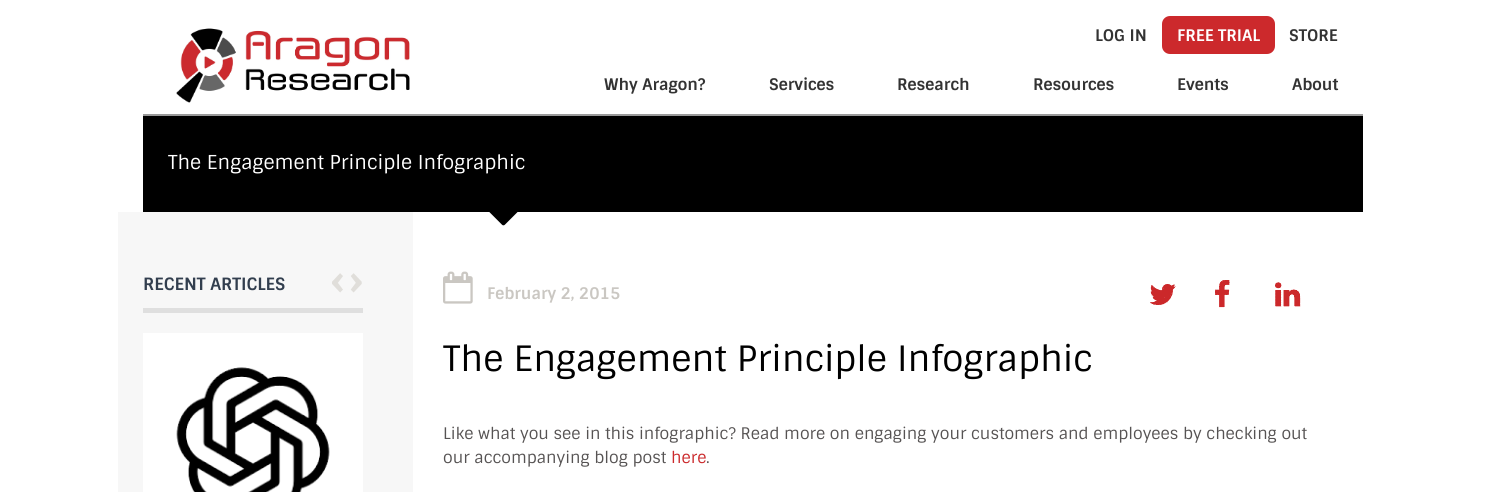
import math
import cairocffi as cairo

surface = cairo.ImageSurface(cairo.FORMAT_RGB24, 1506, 492)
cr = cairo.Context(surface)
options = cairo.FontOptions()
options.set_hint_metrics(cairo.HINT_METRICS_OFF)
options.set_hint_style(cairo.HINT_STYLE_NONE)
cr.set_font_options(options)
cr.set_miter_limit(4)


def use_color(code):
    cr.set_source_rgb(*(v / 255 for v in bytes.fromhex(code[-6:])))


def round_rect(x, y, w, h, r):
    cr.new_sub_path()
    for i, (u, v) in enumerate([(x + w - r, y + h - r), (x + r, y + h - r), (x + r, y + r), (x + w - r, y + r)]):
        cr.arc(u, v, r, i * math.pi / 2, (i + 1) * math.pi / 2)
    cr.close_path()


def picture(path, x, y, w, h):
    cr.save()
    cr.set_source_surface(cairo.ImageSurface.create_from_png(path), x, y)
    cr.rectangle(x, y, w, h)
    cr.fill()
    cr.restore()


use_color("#ffffff")
cr.paint()
use_color("#999999")
cr.rectangle(143, 114, 1220, 2)
cr.fill()
picture("img1.png", 176, 28, 234, 75)
cr.select_font_face("Sintony", cairo.FONT_SLANT_NORMAL, cairo.FONT_WEIGHT_BOLD)
cr.set_font_size(16)
use_color("#333333")
cr.move_to(1095, 41)
cr.show_text("LOG IN")
use_color("#cc292c")
round_rect(1162, 16, 113, 38, 8)
cr.fill()
use_color("#ffffff")
cr.move_to(1177, 41)
cr.show_text("FREE TRIAL")
use_color("#333333")
cr.move_to(1289, 41)
cr.show_text("STORE")
cr.move_to(604, 90)
cr.show_text("Why Aragon?")
cr.move_to(769, 90)
cr.show_text("Services")
cr.move_to(897, 90)
cr.show_text("Research")
cr.move_to(1033, 90)
cr.show_text("Resources")
cr.move_to(1177, 90)
cr.show_text("Events")
cr.move_to(1292, 90)
cr.show_text("About")
use_color("#000000")
cr.rectangle(143, 116, 1220, 96)
cr.fill()
cr.select_font_face("Sintony")
cr.set_font_size(19.25)
use_color("#ffffff")
cr.move_to(168, 169)
cr.show_text("The Engagement Principle Infographic")
picture("img2.png", 489, 212, 29, 14)
use_color("#f7f7f7")
cr.rectangle(118, 212, 295, 280)
cr.fill()
use_color("#dfdfdf")
cr.rectangle(143, 308, 220, 5)
cr.fill()
cr.select_font_face("Sintony", cairo.FONT_SLANT_NORMAL, cairo.FONT_WEIGHT_BOLD)
cr.set_font_size(17)
use_color("#323e4e")
cr.move_to(143, 290)
cr.show_text("RECENT ARTICLES")
cr.set_font_size(45)
use_color("#e0deda")
cr.move_to(331, 297)
cr.show_text("‹")
cr.move_to(349, 297)
cr.show_text("›")
picture("img3.png", 143, 333, 220, 159)
picture("img4.png", 443, 271, 30, 33)
cr.set_font_size(16)
use_color("#cac7c2")
cr.move_to(487, 299)
cr.show_text("February 2, 2015")
picture("img5.png", 1150, 284, 26, 21)
picture("img6.png", 1215, 280, 15, 28)
picture("img7.png", 1275, 282, 26, 25)
cr.select_font_face("Sintony")
cr.set_font_size(35)
use_color("#000000")
cr.move_to(443, 371)
cr.show_text("The Engagement Principle Infographic")
cr.set_font_size(16)
use_color("#565353")
cr.move_to(443, 439)
cr.show_text("Like what you see in this infographic? Read more on engaging your customers and employees by checking out")
cr.move_to(443, 463)
cr.show_text("our accompanying blog post")
use_color("#cb292b")
cr.move_to(671, 463)
cr.show_text("here")
use_color("#565353")
cr.move_to(706, 463)
cr.show_text(".")
surface.write_to_png("result.png")
